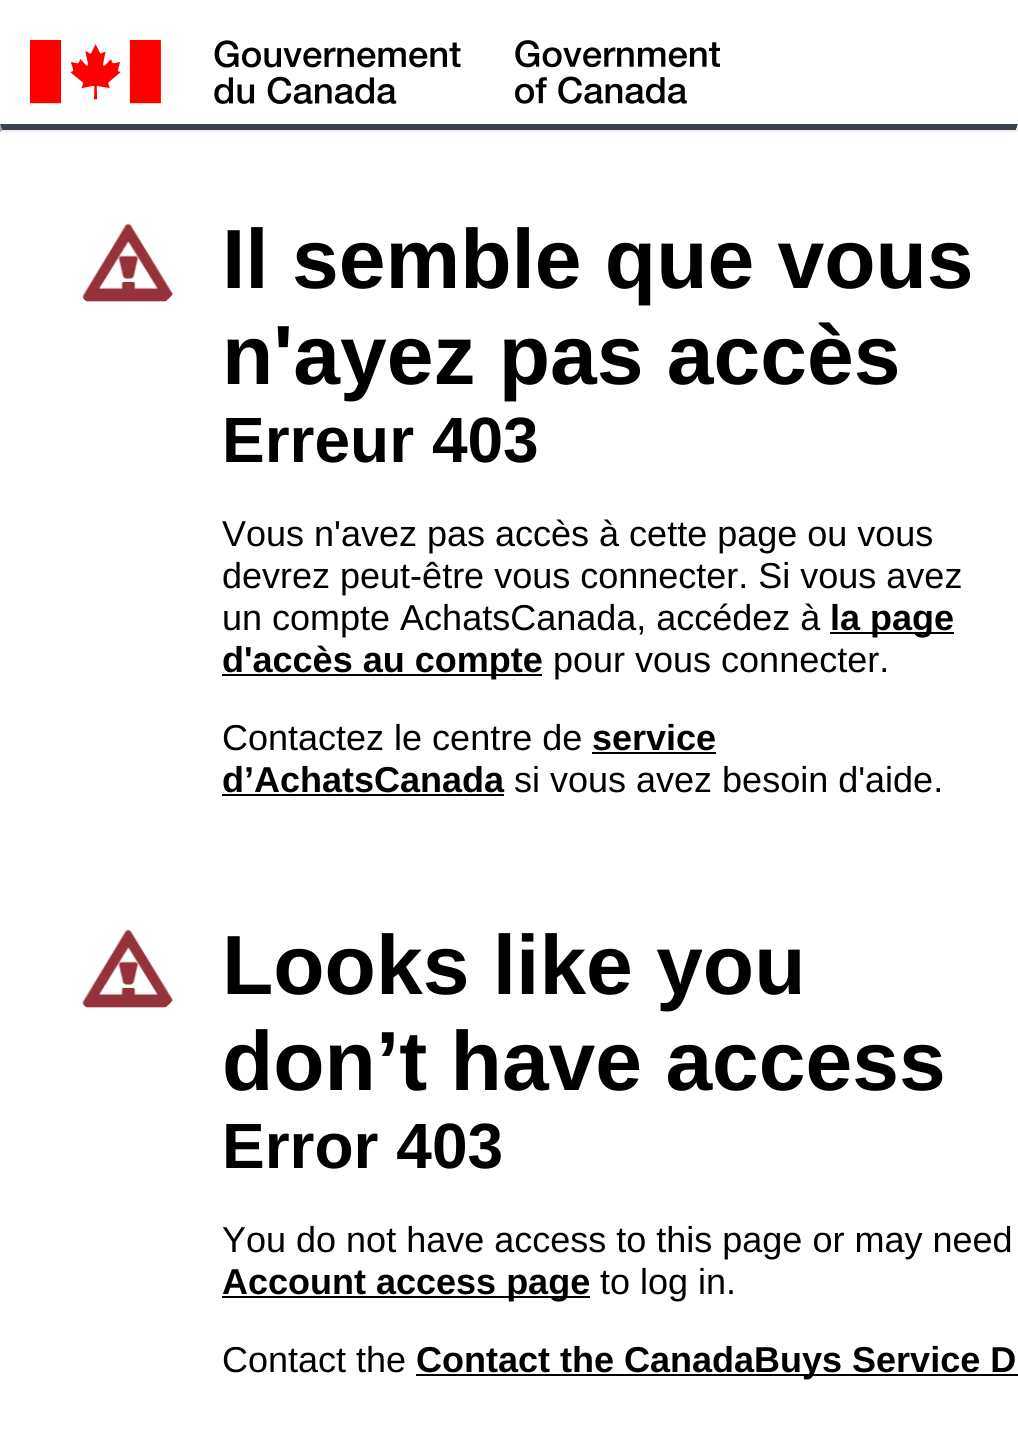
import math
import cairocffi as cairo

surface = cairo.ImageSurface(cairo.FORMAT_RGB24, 1018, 1437)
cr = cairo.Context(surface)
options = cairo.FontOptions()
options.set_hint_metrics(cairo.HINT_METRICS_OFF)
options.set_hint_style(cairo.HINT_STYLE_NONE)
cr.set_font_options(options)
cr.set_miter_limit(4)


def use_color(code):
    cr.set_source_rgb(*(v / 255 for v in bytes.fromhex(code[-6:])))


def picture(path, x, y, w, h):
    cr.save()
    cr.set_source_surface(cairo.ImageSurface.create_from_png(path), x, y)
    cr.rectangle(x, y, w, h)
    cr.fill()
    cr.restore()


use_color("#ffffff")
cr.paint()
picture("img1.png", 30, 40, 691, 64)
use_color("#38414d")
cr.new_path()
cr.move_to(0, 124)
cr.line_to(1018, 124)
cr.line_to(1016, 130)
cr.line_to(2, 130)
cr.close_path()
cr.fill()
use_color("#eeeeee")
cr.new_path()
cr.move_to(1018, 124)
cr.line_to(1018, 132)
cr.line_to(1016, 130)
cr.close_path()
cr.fill()
cr.rectangle(0, 130, 1018, 2)
cr.fill()
use_color("#9f9f9f")
cr.new_path()
cr.move_to(0, 132)
cr.line_to(0, 124)
cr.line_to(2, 130)
cr.close_path()
cr.fill()
picture("img2.png", 82, 223, 92, 79)
cr.select_font_face("Liberation Sans", cairo.FONT_SLANT_NORMAL, cairo.FONT_WEIGHT_BOLD)
cr.set_font_size(84)
use_color("#000000")
cr.move_to(222, 288)
cr.show_text("Il semble que vous")
cr.move_to(222, 384)
cr.show_text("n'ayez pas accès")
cr.set_font_size(64)
cr.move_to(222, 462)
cr.show_text("Erreur 403")
cr.select_font_face("Liberation Sans")
cr.set_font_size(36)
cr.move_to(222, 546)
cr.show_text("Vous n'avez pas accès à cette page ou vous")
cr.move_to(222, 588)
cr.show_text("devrez peut-être vous connecter. Si vous avez")
cr.move_to(222, 630)
cr.show_text("un compte AchatsCanada, accédez à")
cr.rectangle(830, 632, 124, 2)
cr.fill()
cr.select_font_face("Liberation Sans", cairo.FONT_SLANT_NORMAL, cairo.FONT_WEIGHT_BOLD)
cr.move_to(830, 630)
cr.show_text("la page")
cr.rectangle(222, 674, 320, 2)
cr.fill()
cr.move_to(222, 672)
cr.show_text("d'accès au compte")
cr.select_font_face("Liberation Sans")
cr.move_to(553, 672)
cr.show_text("pour vous connecter.")
cr.move_to(222, 750)
cr.show_text("Contactez le centre de")
cr.select_font_face("Liberation Sans", cairo.FONT_SLANT_NORMAL, cairo.FONT_WEIGHT_BOLD)
cr.move_to(592, 750)
cr.show_text("service")
cr.rectangle(592, 752, 124, 2)
cr.fill()
cr.move_to(222, 792)
cr.show_text("d’AchatsCanada")
cr.rectangle(222, 794, 282, 2)
cr.fill()
cr.select_font_face("Liberation Sans")
cr.move_to(514, 792)
cr.show_text("si vous avez besoin d'aide.")
picture("img2.png", 82, 929, 92, 79)
cr.select_font_face("Liberation Sans", cairo.FONT_SLANT_NORMAL, cairo.FONT_WEIGHT_BOLD)
cr.set_font_size(84)
cr.move_to(222, 994)
cr.show_text("Looks like you")
cr.move_to(222, 1090)
cr.show_text("don’t have access")
cr.set_font_size(64)
cr.move_to(222, 1168)
cr.show_text("Error 403")
cr.select_font_face("Liberation Sans")
cr.set_font_size(36)
cr.move_to(222, 1252)
cr.show_text("You do not have access to this page or may need")
cr.rectangle(222, 1296, 368, 2)
cr.fill()
cr.select_font_face("Liberation Sans", cairo.FONT_SLANT_NORMAL, cairo.FONT_WEIGHT_BOLD)
cr.move_to(222, 1294)
cr.show_text("Account access page")
cr.select_font_face("Liberation Sans")
cr.move_to(600, 1294)
cr.show_text("to log in.")
cr.move_to(222, 1372)
cr.show_text("Contact the")
cr.rectangle(416, 1374, 602, 2)
cr.fill()
cr.select_font_face("Liberation Sans", cairo.FONT_SLANT_NORMAL, cairo.FONT_WEIGHT_BOLD)
cr.move_to(416, 1372)
cr.show_text("Contact the CanadaBuys Service D")
surface.write_to_png("result.png")
